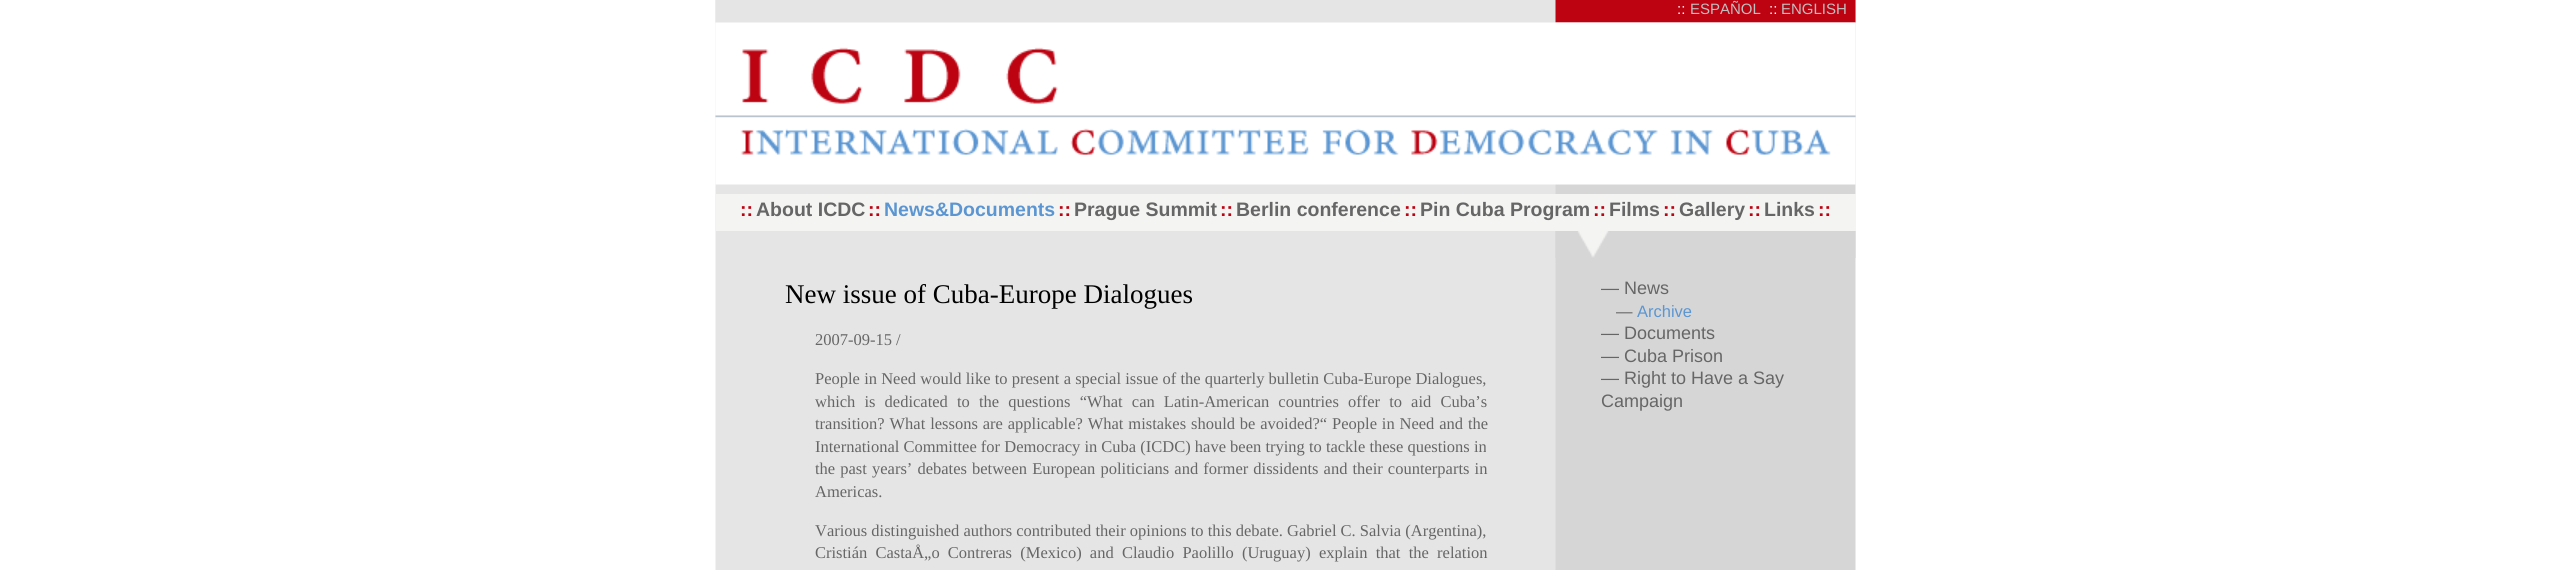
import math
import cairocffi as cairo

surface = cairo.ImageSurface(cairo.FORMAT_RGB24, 2570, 570)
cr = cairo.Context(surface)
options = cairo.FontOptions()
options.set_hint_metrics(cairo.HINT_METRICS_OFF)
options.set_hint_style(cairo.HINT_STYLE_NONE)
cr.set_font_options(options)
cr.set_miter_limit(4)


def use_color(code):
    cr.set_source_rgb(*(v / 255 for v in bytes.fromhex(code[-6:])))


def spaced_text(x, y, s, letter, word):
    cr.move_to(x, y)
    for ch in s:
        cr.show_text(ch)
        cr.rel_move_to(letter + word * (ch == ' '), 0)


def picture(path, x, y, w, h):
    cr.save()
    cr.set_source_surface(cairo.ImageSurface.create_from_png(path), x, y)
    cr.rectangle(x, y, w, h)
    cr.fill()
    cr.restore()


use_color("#ffffff")
cr.paint()
picture("img1.png", 715, 0, 1141, 570)
picture("img2.png", 715, 0, 1141, 23)
cr.select_font_face("Liberation Sans")
cr.set_font_size(15)
use_color("#ffffff")
cr.move_to(1677, 14)
cr.show_text("::")
use_color("#c0c0c0")
cr.move_to(1690, 14)
cr.show_text("ESPAÑOL")
use_color("#ffffff")
cr.move_to(1769, 14)
cr.show_text("::")
use_color("#c0c0c0")
cr.move_to(1781, 14)
cr.show_text("ENGLISH")
picture("img3.png", 715, 22, 1141, 163)
use_color("#f4f4f3")
cr.rectangle(716, 194, 1140, 37)
cr.fill()
cr.select_font_face("Liberation Sans", cairo.FONT_SLANT_NORMAL, cairo.FONT_WEIGHT_BOLD)
cr.set_font_size(19.5)
use_color("#bd0212")
cr.move_to(740, 216)
cr.show_text("::")
use_color("#666666")
cr.move_to(756, 216)
cr.show_text("About ICDC")
use_color("#bd0212")
cr.move_to(868, 216)
cr.show_text("::")
use_color("#5b96d2")
cr.move_to(884, 216)
cr.show_text("News&Documents")
use_color("#bd0212")
cr.move_to(1058, 216)
cr.show_text("::")
use_color("#666666")
cr.move_to(1074, 216)
cr.show_text("Prague Summit")
use_color("#bd0212")
cr.move_to(1220, 216)
cr.show_text("::")
use_color("#666666")
cr.move_to(1236, 216)
cr.show_text("Berlin conference")
use_color("#bd0212")
cr.move_to(1404, 216)
cr.show_text("::")
use_color("#666666")
cr.move_to(1420, 216)
cr.show_text("Pin Cuba Program")
use_color("#bd0212")
cr.move_to(1593, 216)
cr.show_text("::")
use_color("#666666")
cr.move_to(1609, 216)
cr.show_text("Films")
use_color("#bd0212")
cr.move_to(1663, 216)
cr.show_text("::")
use_color("#666666")
cr.move_to(1679, 216)
cr.show_text("Gallery")
use_color("#bd0212")
cr.move_to(1748, 216)
cr.show_text("::")
use_color("#666666")
cr.move_to(1764, 216)
cr.show_text("Links")
use_color("#bd0212")
cr.move_to(1818, 216)
cr.show_text("::")
cr.select_font_face("Liberation Serif")
cr.set_font_size(27)
use_color("#000000")
cr.move_to(785, 303)
cr.show_text("New issue of Cuba-Europe Dialogues")
cr.set_font_size(16.5)
use_color("#666666")
cr.move_to(815, 345)
cr.show_text("2007-09-15 /")
spaced_text(815, 384, "People in Need would like to present a special issue of the quarterly bulletin Cuba-Europe Dialogues,", 0, 0.1)
spaced_text(815, 407, "which is dedicated to the questions “What can Latin-American countries offer to aid Cuba’s", 0, 5)
spaced_text(815, 429, "transition? What lessons are applicable? What mistakes should be avoided?“ People in Need and the", 0, 0.75)
cr.move_to(815, 452)
cr.show_text("International Committee for Democracy in Cuba (ICDC) have been trying to tackle these questions in")
spaced_text(815, 474, "the past years’ debates between European politicians and former dissidents and their counterparts in", 0, 1)
cr.move_to(815, 497)
cr.show_text("Americas.")
cr.move_to(815, 536)
cr.show_text("Various distinguished authors contributed their opinions to this debate. Gabriel C. Salvia (Argentina),")
spaced_text(815, 558, "Cristián CastaÅ„o Contreras (Mexico) and Claudio Paolillo (Uruguay) explain that the relation", 0, 4.1)
picture("img4.png", 1555, 231, 301, 27)
cr.select_font_face("Liberation Sans")
cr.set_font_size(18)
cr.move_to(1601, 294)
cr.show_text("— News")
cr.set_font_size(16.5)
cr.move_to(1616, 317)
cr.show_text("—")
use_color("#5b96d2")
cr.move_to(1637, 317)
cr.show_text("Archive")
cr.set_font_size(18)
use_color("#666666")
cr.move_to(1601, 339)
cr.show_text("— Documents")
cr.move_to(1601, 362)
cr.show_text("— Cuba Prison")
cr.move_to(1601, 384)
cr.show_text("— Right to Have a Say")
cr.move_to(1601, 407)
cr.show_text("Campaign")
surface.write_to_png("result.png")
